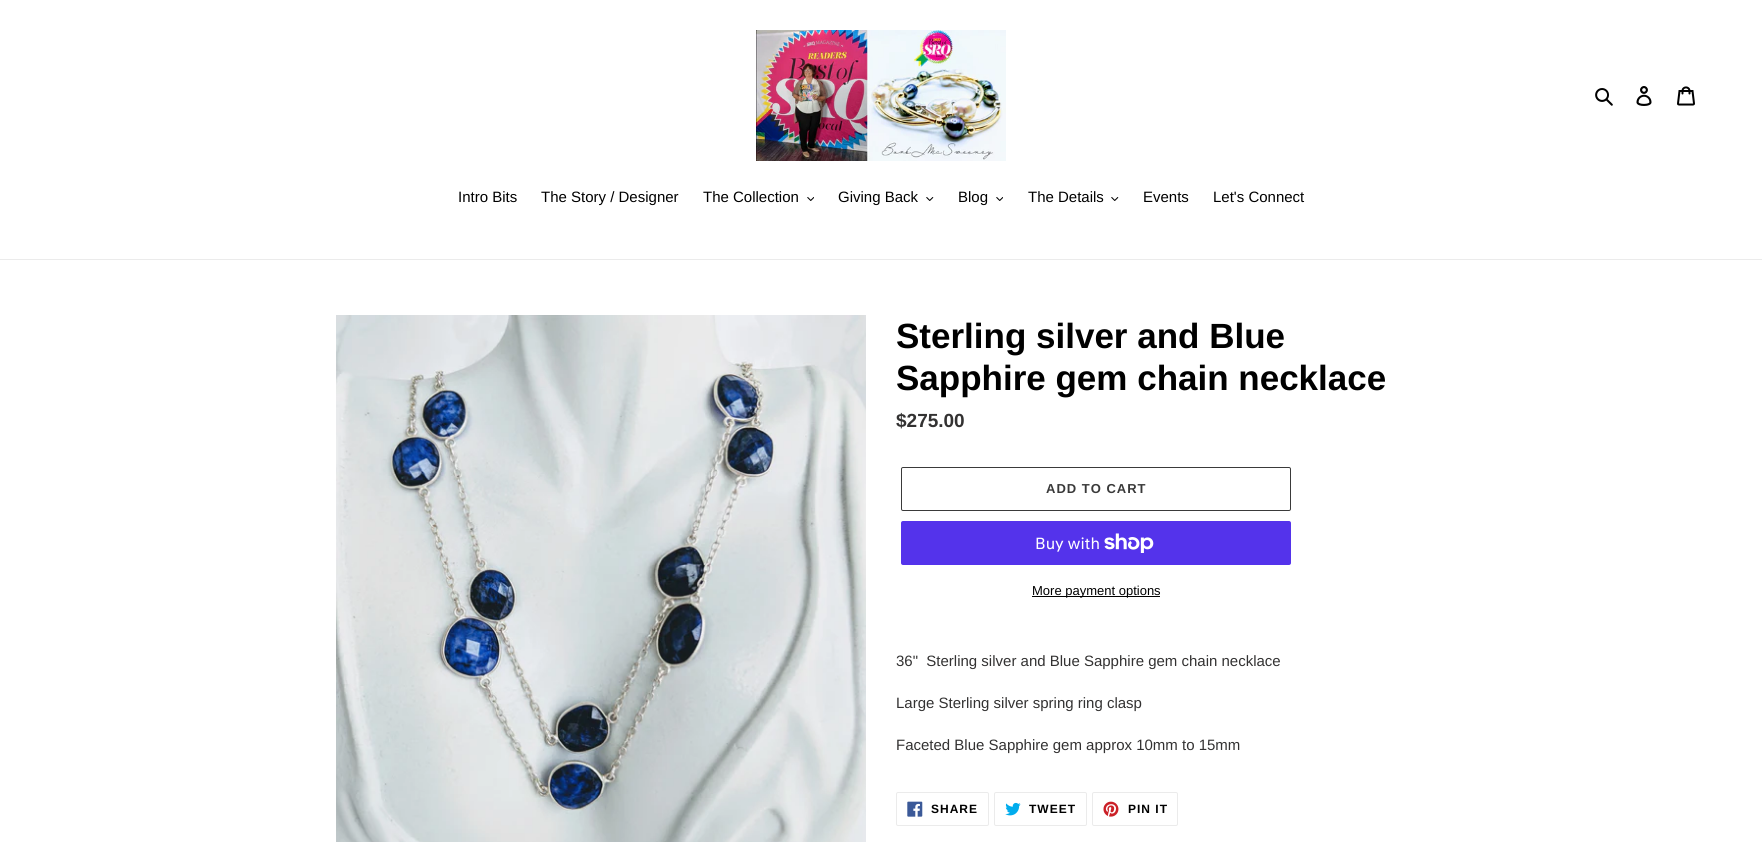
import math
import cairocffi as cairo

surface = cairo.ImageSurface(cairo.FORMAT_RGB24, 1762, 842)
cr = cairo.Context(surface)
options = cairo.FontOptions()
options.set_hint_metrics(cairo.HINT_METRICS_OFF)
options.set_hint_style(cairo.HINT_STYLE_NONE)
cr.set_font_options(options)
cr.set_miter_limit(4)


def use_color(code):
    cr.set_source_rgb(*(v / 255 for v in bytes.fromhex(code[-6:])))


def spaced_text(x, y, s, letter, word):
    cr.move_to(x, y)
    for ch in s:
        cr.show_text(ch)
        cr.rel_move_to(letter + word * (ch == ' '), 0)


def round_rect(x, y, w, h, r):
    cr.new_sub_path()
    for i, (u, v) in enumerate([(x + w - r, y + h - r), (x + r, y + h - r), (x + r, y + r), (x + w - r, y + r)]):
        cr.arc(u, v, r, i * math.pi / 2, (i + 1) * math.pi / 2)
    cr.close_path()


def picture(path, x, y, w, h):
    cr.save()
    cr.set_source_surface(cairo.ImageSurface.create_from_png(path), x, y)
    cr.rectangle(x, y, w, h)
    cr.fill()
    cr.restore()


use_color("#ffffff")
cr.paint()
picture("img1.png", 756, 30, 250, 131)
picture("img2.png", 1595, 88, 18, 18)
picture("img3.png", 1636, 86, 16, 20)
picture("img4.png", 1677, 86, 18, 20)
use_color("#ebebeb")
cr.rectangle(0, 259, 1762, 1)
cr.fill()
cr.select_font_face("Liberation Sans")
cr.set_font_size(15)
use_color("#000000")
cr.move_to(458, 202)
cr.show_text("Intro Bits")
cr.move_to(541, 202)
cr.show_text("The Story / Designer")
cr.move_to(703, 202)
cr.show_text("The Collection")
picture("img5.png", 807, 197, 7, 4)
cr.move_to(838, 202)
cr.show_text("Giving Back")
picture("img6.png", 926, 197, 8, 4)
cr.move_to(958, 202)
cr.show_text("Blog")
picture("img5.png", 996, 197, 7, 4)
cr.move_to(1028, 202)
cr.show_text("The Details")
picture("img6.png", 1111, 197, 8, 4)
cr.move_to(1143, 202)
cr.show_text("Events")
cr.move_to(1213, 202)
cr.show_text("Let's Connect")
picture("img7.png", 336, 315, 530, 527)
cr.select_font_face("Liberation Sans", cairo.FONT_SLANT_NORMAL, cairo.FONT_WEIGHT_BOLD)
cr.set_font_size(35)
cr.move_to(896, 348)
cr.show_text("Sterling silver and Blue")
cr.move_to(896, 390)
cr.show_text("Sapphire gem chain necklace")
cr.set_font_size(19)
use_color("#333232")
cr.move_to(896, 427)
cr.show_text("$275.00")
round_rect(901.5, 467.5, 389, 43, 1.5)
use_color("#3a3a3a")
cr.set_line_width(1)
cr.stroke()
cr.set_font_size(13)
spaced_text(1046, 493, "ADD TO CART", 1, 0)
use_color("#5433eb")
round_rect(901, 521, 390, 44, 2)
cr.fill()
cr.select_font_face("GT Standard")
cr.set_font_size(16)
use_color("#ffffff")
cr.move_to(1035, 549)
cr.show_text("Buy with")
picture("img8.png", 1104, 533, 50, 20)
use_color("#000000")
cr.rectangle(1032, 596, 128, 1)
cr.fill()
cr.select_font_face("Liberation Sans")
cr.set_font_size(13)
cr.move_to(1032, 595)
cr.show_text("More payment options")
cr.set_font_size(15)
use_color("#333232")
cr.move_to(896, 666)
cr.show_text("36\"  Sterling silver and Blue Sapphire gem chain necklace")
cr.move_to(896, 708)
cr.show_text("Large Sterling silver spring ring clasp")
cr.move_to(896, 750)
cr.show_text("Faceted Blue Sapphire gem approx 10mm to 15mm")
round_rect(896.5, 792.5, 92, 33, 1.5)
use_color("#ebebeb")
cr.stroke()
picture("img9.png", 907, 801, 16, 16)
cr.select_font_face("Liberation Sans", cairo.FONT_SLANT_NORMAL, cairo.FONT_WEIGHT_BOLD)
cr.set_font_size(12)
use_color("#000000")
spaced_text(931, 813, "SHARE", 1, 0)
round_rect(994.5, 792.5, 92, 33, 1.5)
use_color("#ebebeb")
cr.stroke()
picture("img10.png", 1005, 802, 16, 14)
use_color("#000000")
spaced_text(1029, 813, "TWEET", 1, 0)
round_rect(1092.5, 792.5, 85, 33, 1.5)
use_color("#ebebeb")
cr.stroke()
picture("img11.png", 1103, 801, 16, 16)
use_color("#000000")
spaced_text(1128, 813, "PIN IT", 1, 0)
surface.write_to_png("result.png")
